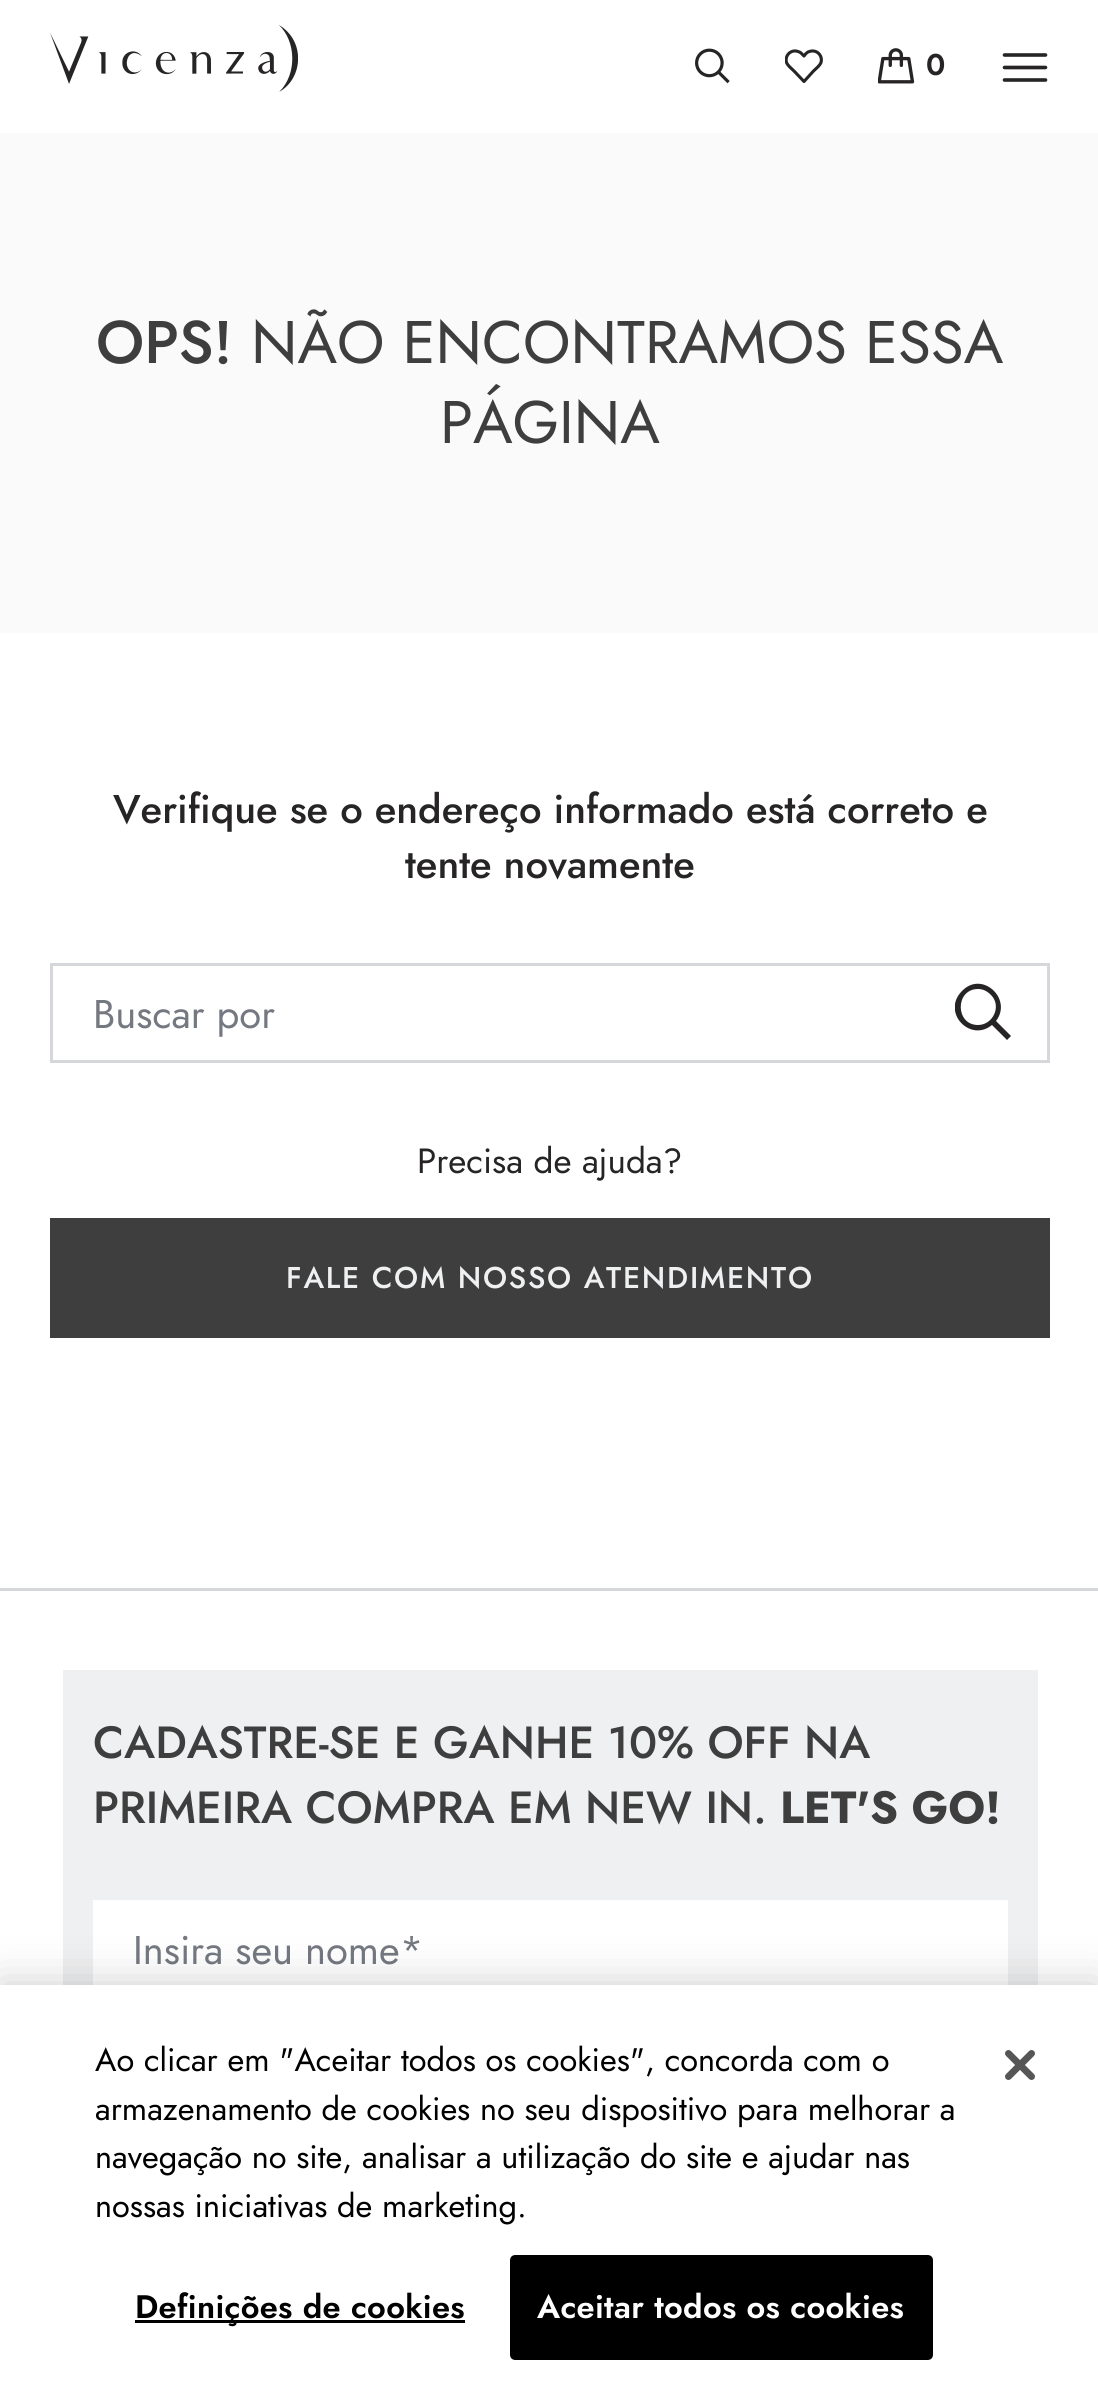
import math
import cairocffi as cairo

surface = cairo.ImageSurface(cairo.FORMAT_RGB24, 1098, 2399)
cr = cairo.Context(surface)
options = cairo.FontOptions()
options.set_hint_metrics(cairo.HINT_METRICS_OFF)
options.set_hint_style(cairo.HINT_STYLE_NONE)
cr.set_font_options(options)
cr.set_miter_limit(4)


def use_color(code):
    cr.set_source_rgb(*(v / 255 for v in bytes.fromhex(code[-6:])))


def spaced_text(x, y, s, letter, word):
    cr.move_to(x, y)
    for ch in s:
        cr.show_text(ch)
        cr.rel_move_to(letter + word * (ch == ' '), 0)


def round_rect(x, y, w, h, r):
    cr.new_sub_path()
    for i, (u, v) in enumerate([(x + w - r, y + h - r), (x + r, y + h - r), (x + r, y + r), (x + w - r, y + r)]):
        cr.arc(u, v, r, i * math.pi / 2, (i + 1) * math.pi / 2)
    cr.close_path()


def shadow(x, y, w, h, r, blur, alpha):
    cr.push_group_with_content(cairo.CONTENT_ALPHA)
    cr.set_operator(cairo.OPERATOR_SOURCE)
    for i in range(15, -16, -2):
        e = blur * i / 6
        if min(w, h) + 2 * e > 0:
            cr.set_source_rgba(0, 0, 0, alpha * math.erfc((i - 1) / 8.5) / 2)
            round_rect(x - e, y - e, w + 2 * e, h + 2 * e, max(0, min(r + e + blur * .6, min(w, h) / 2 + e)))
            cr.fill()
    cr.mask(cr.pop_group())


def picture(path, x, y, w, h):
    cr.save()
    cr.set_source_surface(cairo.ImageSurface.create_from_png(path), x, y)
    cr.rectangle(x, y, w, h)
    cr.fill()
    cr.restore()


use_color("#ffffff")
cr.paint()
picture("img1.png", 50, 25, 248, 67)
picture("img2.png", 695, 48, 35, 36)
cr.save()
cr.rectangle(785, 48, 38, 37)
cr.clip()
cr.new_path()
cr.move_to(804, 81.5)
cr.line_to(794, 71)
cr.curve_to(791.5, 68.5, 788, 66, 786.5, 62.5)
cr.curve_to(784.5, 55.5, 791, 49, 798, 51.5)
cr.curve_to(800.5, 52, 802, 54, 804, 56)
cr.curve_to(805.5, 54, 807, 52, 809.5, 51.5)
cr.curve_to(816.5, 49, 823, 55.5, 821, 62.5)
cr.curve_to(819.5, 66, 816, 68.5, 813.5, 71)
cr.close_path()
use_color("#262424")
cr.set_line_width(3.1)
cr.set_line_cap(cairo.LINE_CAP_ROUND)
cr.set_line_join(cairo.LINE_JOIN_ROUND)
cr.stroke()
cr.restore()
picture("img3.png", 878, 48, 37, 36)
cr.select_font_face("Jost SemiBold")
cr.set_font_size(30)
use_color("#262424")
cr.move_to(926, 75)
cr.show_text("0")
cr.new_path()
cr.move_to(1004.5, 80)
cr.line_to(1045.5, 80)
cr.move_to(1004.5, 67.5)
cr.line_to(1045.5, 67.5)
cr.move_to(1004.5, 55)
cr.line_to(1045.5, 55)
cr.set_line_width(3.6)
cr.set_line_cap(cairo.LINE_CAP_ROUND)
cr.set_line_join(cairo.LINE_JOIN_ROUND)
cr.stroke()
use_color("#fafafa")
cr.rectangle(0, 133, 1098, 500)
cr.fill()
cr.select_font_face("Jost Medium")
cr.set_font_size(60)
use_color("#3e3e3e")
cr.move_to(96, 363)
cr.show_text("OPS!")
cr.select_font_face("Jost")
cr.move_to(251, 363)
cr.show_text("NÃO ENCONTRAMOS ESSA")
cr.move_to(440, 443)
cr.show_text("PÁGINA")
use_color("#d6d7da")
cr.rectangle(0, 1588, 1098, 3)
cr.fill()
cr.select_font_face("Jost Medium")
cr.set_font_size(40)
use_color("#262424")
cr.move_to(113, 823)
cr.show_text("Verifique se o endereço informado está correto e")
cr.move_to(405, 878)
cr.show_text("tente novamente")
cr.rectangle(51.5, 964.5, 997, 97)
use_color("#d6d7da")
cr.set_line_width(3)
cr.set_line_cap(cairo.LINE_CAP_BUTT)
cr.set_line_join(cairo.LINE_JOIN_MITER)
cr.stroke()
cr.select_font_face("Jost")
use_color("#747880")
cr.move_to(93, 1028)
cr.show_text("Buscar por")
cr.save()
cr.rectangle(955, 983, 58, 60)
cr.clip()
use_color("#262424")
cr.new_path()
cr.move_to(996, 1021)
cr.curve_to(1013, 999, 982, 970, 962, 991)
cr.curve_to(941, 1012, 970, 1043, 992, 1025)
cr.line_to(1007, 1040)
cr.line_to(1011, 1036)
cr.close_path()
cr.move_to(978, 1025)
cr.curve_to(955, 1025, 955, 989, 978, 989)
cr.curve_to(983, 989, 987, 991, 991, 995)
cr.curve_to(1002, 1006, 993, 1025, 978, 1025)
cr.close_path()
cr.fill()
cr.restore()
cr.set_font_size(35)
use_color("#262424")
cr.move_to(417, 1173)
cr.show_text("Precisa de ajuda?")
use_color("#3e3e3e")
cr.rectangle(50, 1218, 1000, 120)
cr.fill()
cr.select_font_face("Jost Medium")
cr.set_font_size(30)
use_color("#eff0f1")
spaced_text(286, 1288, "FALE COM NOSSO ATENDIMENTO", 1.75, 0)
cr.rectangle(63, 1670, 975, 315)
cr.fill()
cr.set_font_size(45)
use_color("#3e3e3e")
cr.move_to(93, 1758)
cr.show_text("CADASTRE-SE E GANHE 10% OFF NA")
cr.move_to(93, 1823)
cr.show_text("PRIMEIRA COMPRA EM NEW IN.")
cr.select_font_face("Jost", cairo.FONT_SLANT_NORMAL, cairo.FONT_WEIGHT_BOLD)
cr.move_to(780, 1823)
cr.show_text("LET'S GO!")
use_color("#ffffff")
cr.rectangle(93, 1900, 915, 85)
cr.fill()
cr.select_font_face("Jost")
cr.set_font_size(40)
use_color("#747880")
cr.move_to(133, 1964)
cr.show_text("Insira seu nome*")
use_color("#000000")
shadow(0, 1985, 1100, 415, 0, 22.5, 0.2)
use_color("#ffffff")
cr.rectangle(0, 1985, 1098, 414)
cr.fill()
cr.set_font_size(32.5)
use_color("#000000")
cr.move_to(95, 2071)
cr.show_text("Ao clicar em \"Aceitar todos os cookies\", concorda com o")
cr.move_to(95, 2120)
cr.show_text("armazenamento de cookies no seu dispositivo para melhorar a")
cr.move_to(95, 2168)
cr.show_text("navegação no site, analisar a utilização do site e ajudar nas")
cr.move_to(95, 2217)
cr.show_text("nossas iniciativas de marketing.")
cr.rectangle(135, 2320, 330, 3)
cr.fill()
cr.select_font_face("Jost SemiBold")
spaced_text(135, 2318, "Definições de cookies", 0.3, 0)
round_rect(511.5, 2256.5, 420, 102, 3.5)
cr.fill_preserve()
cr.stroke()
use_color("#ffffff")
spaced_text(537, 2318, "Aceitar todos os cookies", 0.3, 0)
picture("img4.png", 1005, 2050, 30, 30)
surface.write_to_png("result.png")
